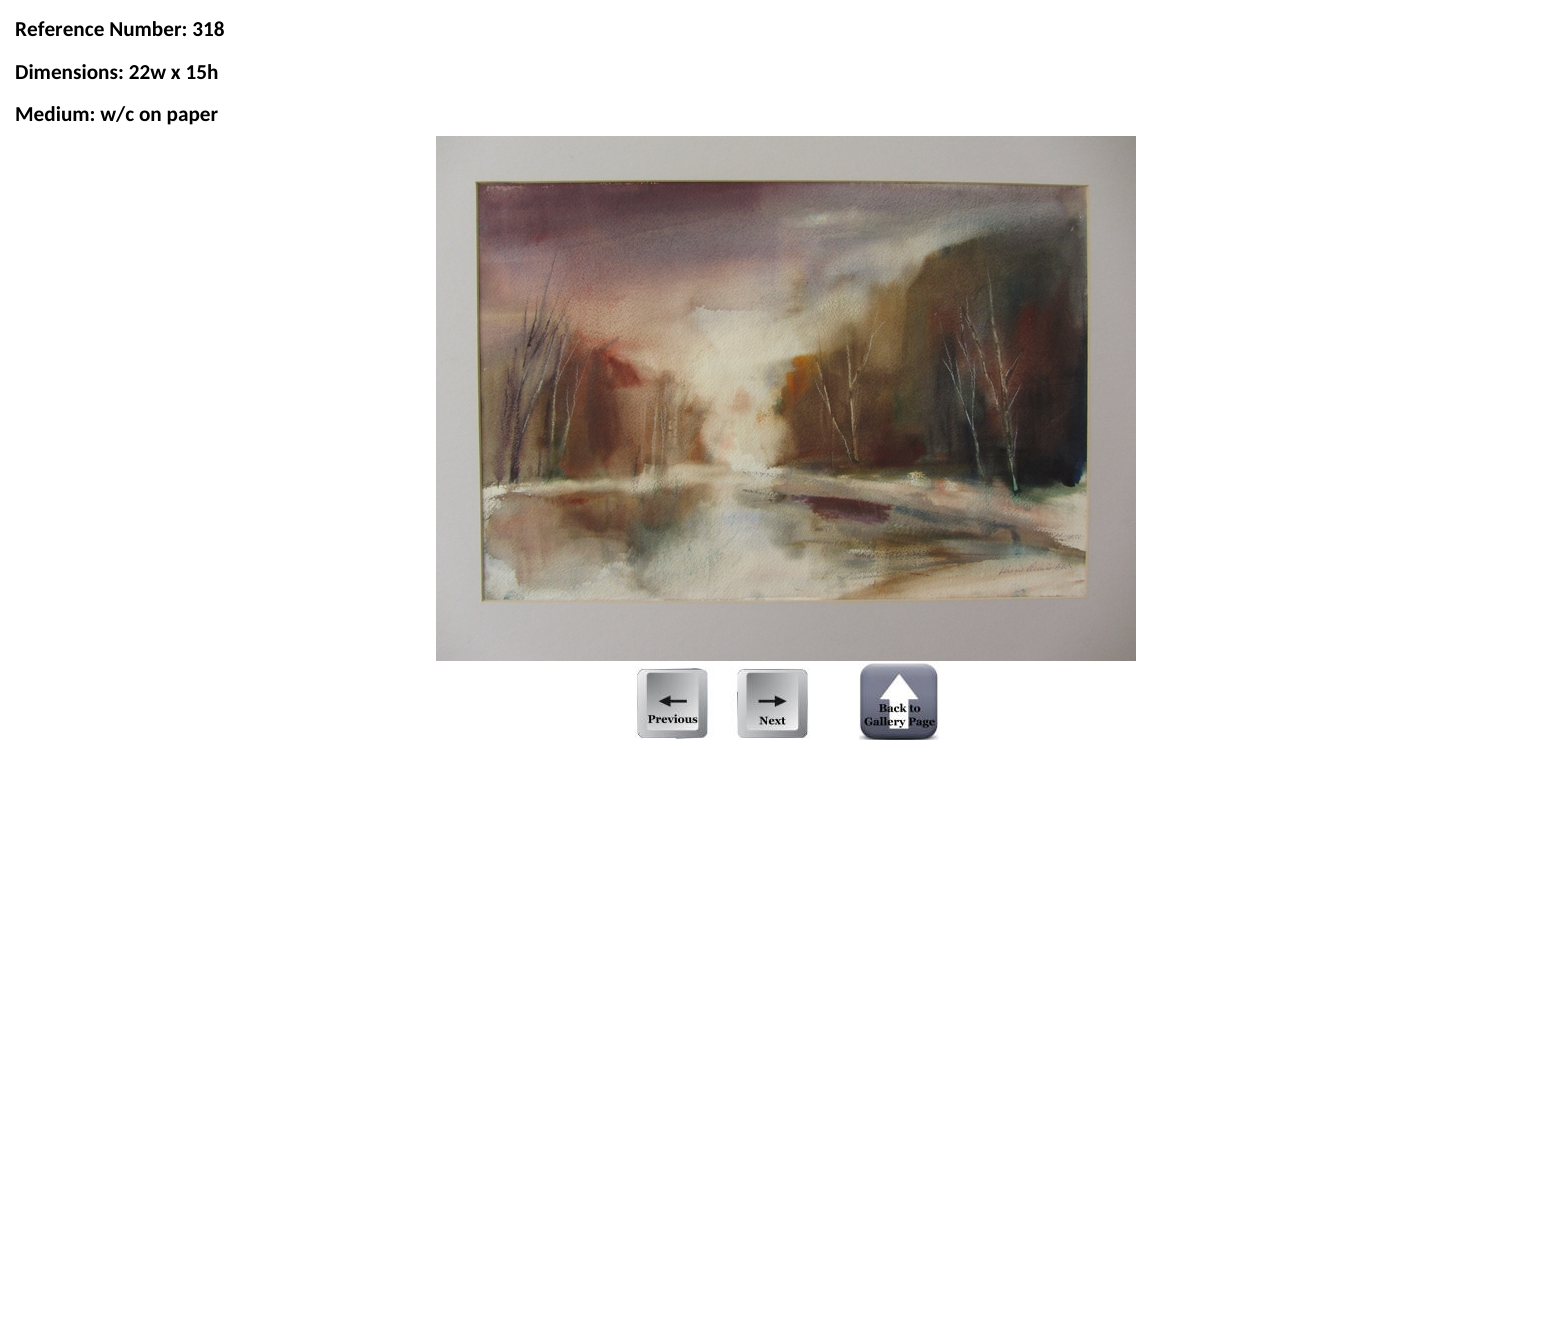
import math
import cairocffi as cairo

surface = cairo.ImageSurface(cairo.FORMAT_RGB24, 1566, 1326)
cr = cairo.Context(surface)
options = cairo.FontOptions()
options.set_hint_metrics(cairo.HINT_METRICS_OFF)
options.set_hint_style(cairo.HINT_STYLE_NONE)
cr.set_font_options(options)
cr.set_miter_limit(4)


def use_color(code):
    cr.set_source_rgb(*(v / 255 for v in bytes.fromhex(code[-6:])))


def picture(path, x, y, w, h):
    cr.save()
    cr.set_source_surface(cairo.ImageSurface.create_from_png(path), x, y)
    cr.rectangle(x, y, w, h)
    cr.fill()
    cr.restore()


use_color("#ffffff")
cr.paint()
cr.select_font_face("Carlito", cairo.FONT_SLANT_NORMAL, cairo.FONT_WEIGHT_BOLD)
cr.set_font_size(21.25)
use_color("#000000")
cr.move_to(15, 36)
cr.show_text("Reference Number: 318")
cr.move_to(15, 79)
cr.show_text("Dimensions: 22w x 15h")
cr.move_to(15, 121)
cr.show_text("Medium: w/c on paper")
picture("img1.png", 436, 136, 700, 525)
picture("img2.png", 634, 667, 176, 72)
picture("img3.png", 859, 661, 80, 79)
surface.write_to_png("result.png")
